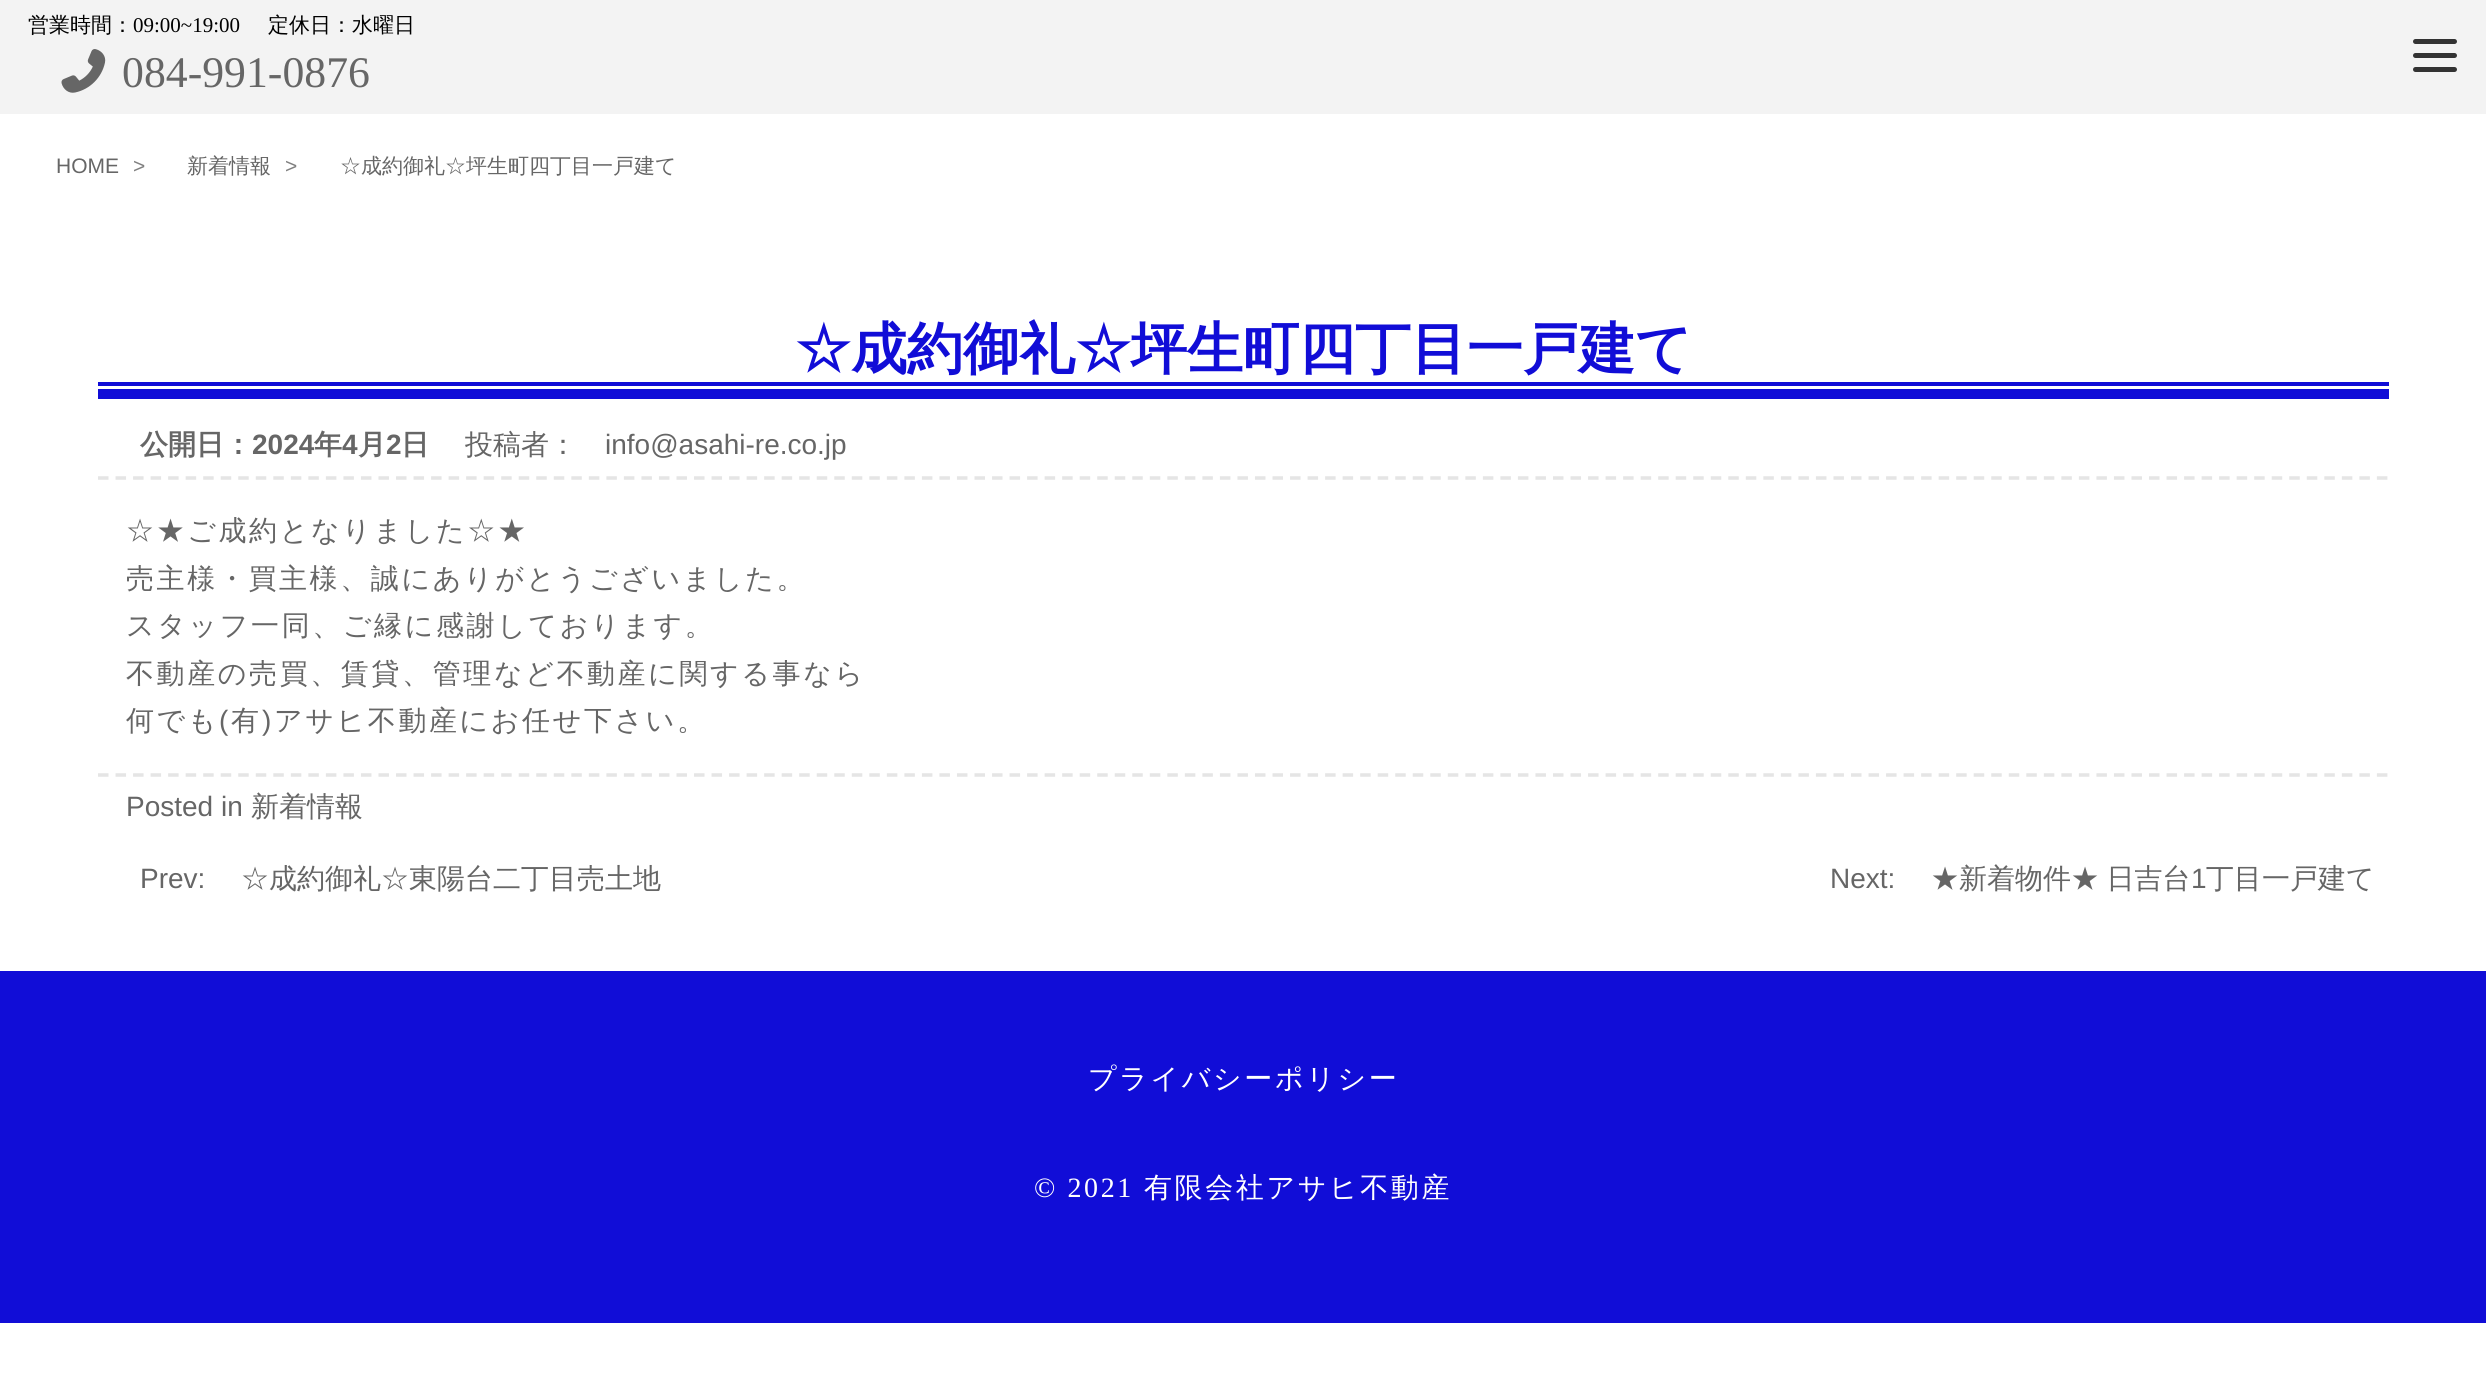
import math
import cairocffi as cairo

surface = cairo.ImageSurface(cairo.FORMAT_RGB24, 2486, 1397)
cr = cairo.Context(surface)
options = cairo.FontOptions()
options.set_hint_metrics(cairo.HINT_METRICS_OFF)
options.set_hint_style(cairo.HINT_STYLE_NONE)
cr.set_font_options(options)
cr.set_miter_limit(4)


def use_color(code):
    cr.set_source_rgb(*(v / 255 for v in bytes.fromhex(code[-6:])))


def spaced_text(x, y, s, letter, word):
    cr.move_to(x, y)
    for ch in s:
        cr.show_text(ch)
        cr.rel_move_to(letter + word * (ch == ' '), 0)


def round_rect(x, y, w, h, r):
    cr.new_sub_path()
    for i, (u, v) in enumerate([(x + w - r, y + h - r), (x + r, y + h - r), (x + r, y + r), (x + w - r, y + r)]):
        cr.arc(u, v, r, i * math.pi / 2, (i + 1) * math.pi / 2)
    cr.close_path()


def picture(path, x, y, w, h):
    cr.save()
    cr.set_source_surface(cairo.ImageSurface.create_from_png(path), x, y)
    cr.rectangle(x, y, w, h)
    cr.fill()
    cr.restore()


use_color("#ffffff")
cr.paint()
use_color("#f3f3f3")
cr.rectangle(0, 0, 2486, 114)
cr.fill()
cr.select_font_face("WenQuanYi Zen Hei Medium")
cr.set_font_size(21)
use_color("#000000")
cr.move_to(28, 32)
cr.show_text("営業時間：")
cr.select_font_face("Liberation Serif")
cr.move_to(133, 32)
cr.show_text("09:00~19:00")
cr.select_font_face("WenQuanYi Zen Hei Medium")
cr.move_to(268, 32)
cr.show_text("定休日：水曜日")
picture("img1.png", 61, 49, 45, 44)
cr.select_font_face("Liberation Serif")
cr.set_font_size(43.75)
use_color("#666666")
cr.move_to(122, 87)
cr.show_text("084-991-0876")
use_color("#333333")
round_rect(2413, 39, 44, 5, 2.5)
cr.fill()
round_rect(2413, 53, 44, 5, 2.5)
cr.fill()
round_rect(2413, 67, 44, 5, 2.5)
cr.fill()
cr.select_font_face("Liberation Sans")
cr.set_font_size(21)
use_color("#666666")
cr.move_to(56, 173)
cr.show_text("HOME")
use_color("#808080")
cr.move_to(133, 173)
cr.show_text(">")
cr.select_font_face("WenQuanYi Zen Hei Medium")
use_color("#666666")
cr.move_to(187, 173)
cr.show_text("新着情報")
cr.select_font_face("Liberation Sans")
use_color("#808080")
cr.move_to(285, 173)
cr.show_text(">")
cr.select_font_face("WenQuanYi Zen Hei Medium")
use_color("#666666")
cr.move_to(340, 173)
cr.show_text("☆成約御礼☆坪生町四丁目一戸建て")
cr.new_path()
cr.move_to(98, 478)
cr.line_to(2389, 478)
use_color("#e5e5e5")
cr.set_line_width(3.5)
cr.set_dash([10.5, 7.03])
cr.stroke()
use_color("#110dd7")
cr.rectangle(98, 382, 2291, 4)
cr.fill()
cr.select_font_face("WenQuanYi Zen Hei", cairo.FONT_SLANT_NORMAL, cairo.FONT_WEIGHT_BOLD)
cr.set_font_size(56)
cr.move_to(795, 368)
cr.show_text("☆成約御礼☆坪生町四丁目一戸建て")
cr.rectangle(98, 389, 2291, 10)
cr.fill()
cr.set_font_size(28)
use_color("#666666")
cr.move_to(140, 454)
cr.show_text("公開日：")
cr.select_font_face("Liberation Sans", cairo.FONT_SLANT_NORMAL, cairo.FONT_WEIGHT_BOLD)
cr.move_to(252, 454)
cr.show_text("2024")
cr.select_font_face("WenQuanYi Zen Hei", cairo.FONT_SLANT_NORMAL, cairo.FONT_WEIGHT_BOLD)
cr.move_to(314, 454)
cr.show_text("年")
cr.select_font_face("Liberation Sans", cairo.FONT_SLANT_NORMAL, cairo.FONT_WEIGHT_BOLD)
cr.move_to(342, 454)
cr.show_text("4")
cr.select_font_face("WenQuanYi Zen Hei", cairo.FONT_SLANT_NORMAL, cairo.FONT_WEIGHT_BOLD)
cr.move_to(358, 454)
cr.show_text("月")
cr.select_font_face("Liberation Sans", cairo.FONT_SLANT_NORMAL, cairo.FONT_WEIGHT_BOLD)
cr.move_to(386, 454)
cr.show_text("2")
cr.select_font_face("WenQuanYi Zen Hei", cairo.FONT_SLANT_NORMAL, cairo.FONT_WEIGHT_BOLD)
cr.move_to(401, 454)
cr.show_text("日")
cr.select_font_face("WenQuanYi Zen Hei Medium")
cr.move_to(465, 454)
cr.show_text("投稿者：")
cr.select_font_face("Liberation Sans")
cr.move_to(605, 454)
cr.show_text("info@asahi-re.co.jp")
cr.new_path()
cr.move_to(98, 775)
cr.line_to(2389, 775)
use_color("#e5e5e5")
cr.stroke()
cr.select_font_face("WenQuanYi Zen Hei Medium")
use_color("#666666")
spaced_text(126, 540, "☆★ご成約となりました☆★", 2.6, 0)
spaced_text(126, 588, "売主様・買主様、誠にありがとうございました。", 2.6, 0)
spaced_text(126, 635, "スタッフ一同、ご縁に感謝しております。", 2.6, 0)
spaced_text(126, 683, "不動産の売買、賃貸、管理など不動産に関する事なら", 2.6, 0)
spaced_text(126, 730, "何でも", 2.6, 0)
cr.select_font_face("Liberation Sans")
spaced_text(219, 730, "(", 2.6, 0)
cr.select_font_face("WenQuanYi Zen Hei Medium")
spaced_text(231, 730, "有", 2.6, 0)
cr.select_font_face("Liberation Sans")
spaced_text(262, 730, ")", 2.6, 0)
cr.select_font_face("WenQuanYi Zen Hei Medium")
spaced_text(274, 730, "アサヒ不動産にお任せ下さい。", 2.6, 0)
cr.select_font_face("Liberation Sans")
cr.move_to(126, 816)
cr.show_text("Posted in")
cr.select_font_face("WenQuanYi Zen Hei Medium")
cr.move_to(251, 816)
cr.show_text("新着情報")
cr.select_font_face("Liberation Sans")
cr.move_to(140, 888)
cr.show_text("Prev:")
cr.select_font_face("WenQuanYi Zen Hei Medium")
cr.move_to(241, 888)
cr.show_text("☆成約御礼☆東陽台二丁目売土地")
cr.select_font_face("Liberation Sans")
cr.move_to(1830, 888)
cr.show_text("Next:")
cr.select_font_face("WenQuanYi Zen Hei Medium")
spaced_text(1931, 888, "★新着物件★ 日吉台", 0, -1)
cr.select_font_face("Liberation Sans")
cr.move_to(2191, 888)
cr.show_text("1")
cr.select_font_face("WenQuanYi Zen Hei Medium")
cr.move_to(2206, 888)
cr.show_text("丁目一戸建て")
use_color("#110dd7")
cr.rectangle(0, 971, 2486, 352)
cr.fill()
use_color("#ffffff")
spaced_text(1088, 1088, "プライバシーポリシー", 2.6, 0)
cr.select_font_face("Liberation Serif")
spaced_text(1034, 1197, "© 2021", 2.6, 0)
cr.select_font_face("WenQuanYi Zen Hei Medium")
spaced_text(1144, 1197, "有限会社アサヒ不動産", 2.6, 0)
surface.write_to_png("result.png")
